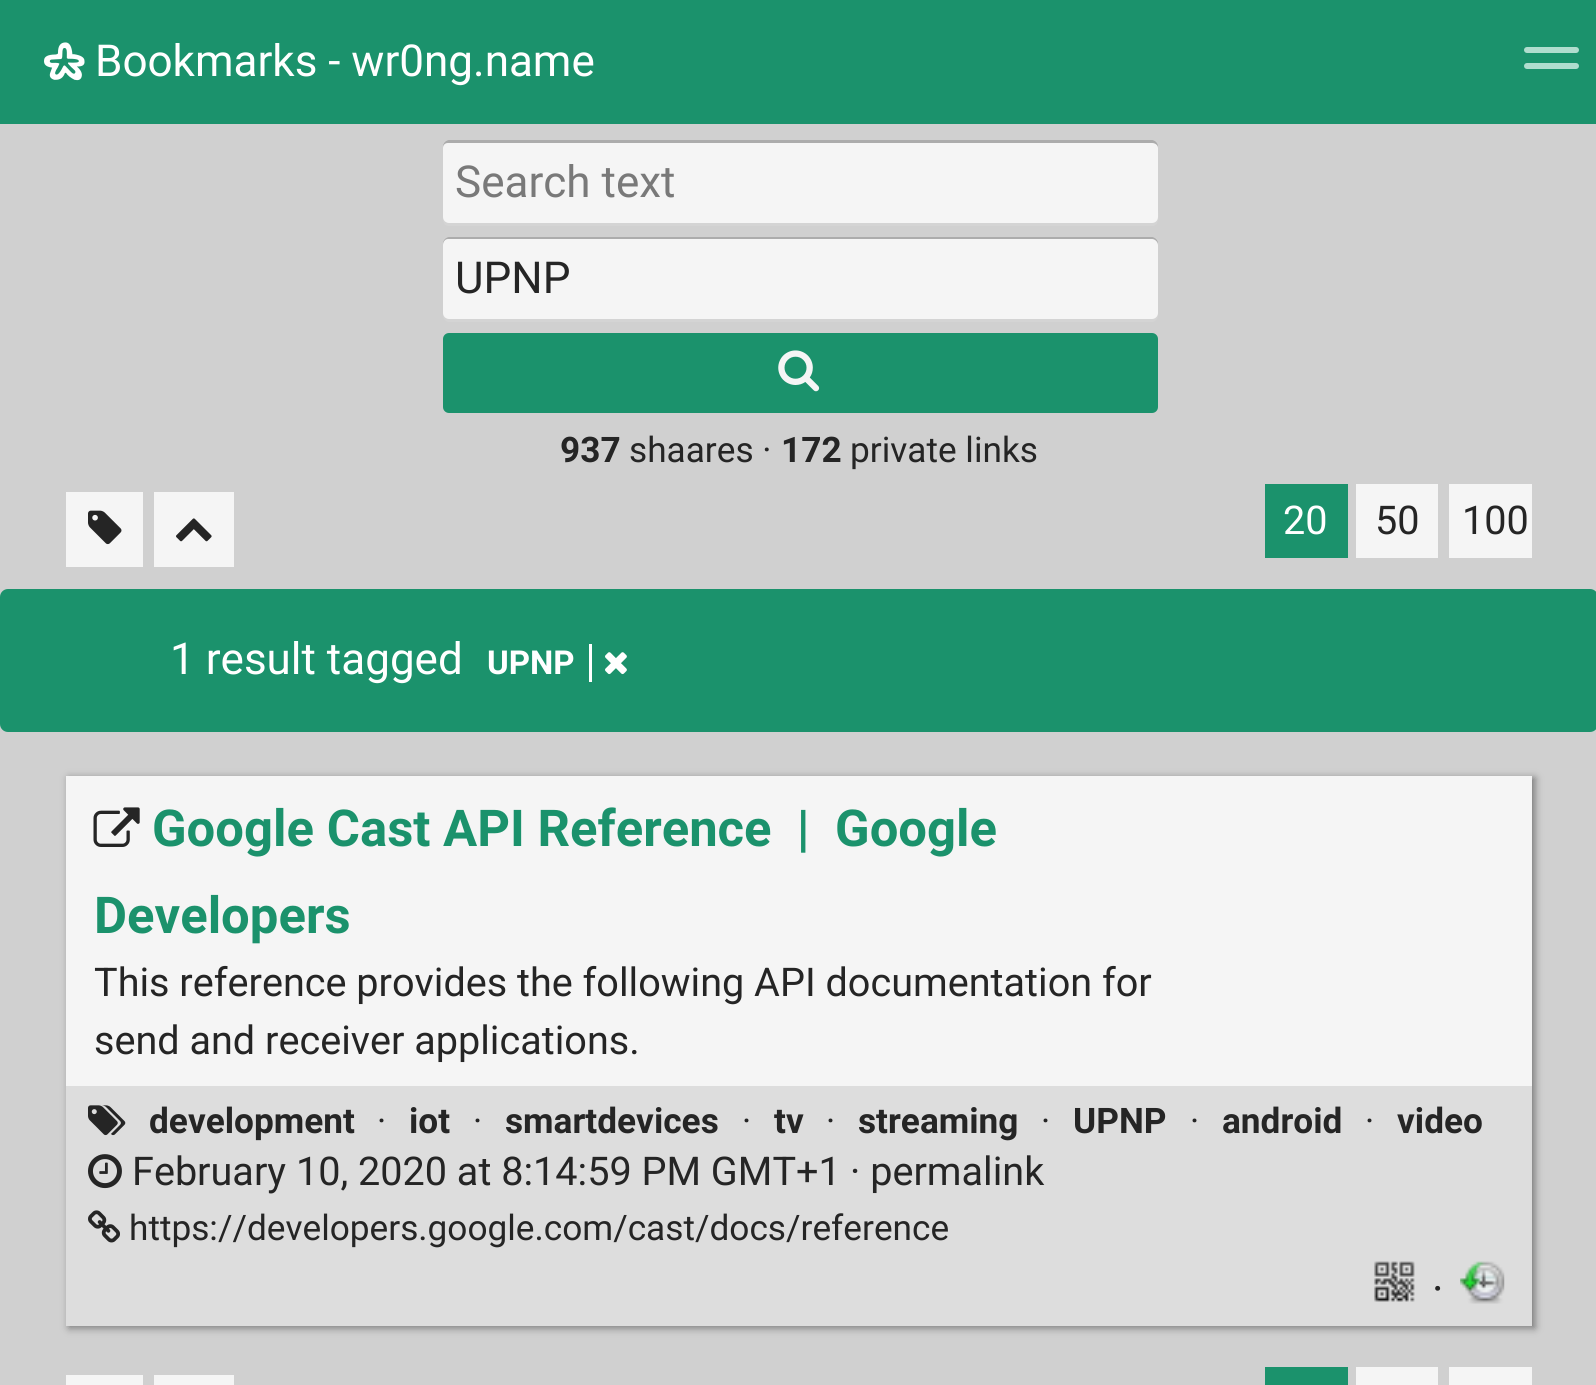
import math
import cairocffi as cairo

surface = cairo.ImageSurface(cairo.FORMAT_RGB24, 1596, 1385)
cr = cairo.Context(surface)
options = cairo.FontOptions()
options.set_hint_metrics(cairo.HINT_METRICS_OFF)
options.set_hint_style(cairo.HINT_STYLE_NONE)
cr.set_font_options(options)
cr.set_miter_limit(4)


def use_color(code):
    cr.set_source_rgb(*(v / 255 for v in bytes.fromhex(code[-6:])))


def round_rect(x, y, w, h, r):
    cr.new_sub_path()
    for i, (u, v) in enumerate([(x + w - r, y + h - r), (x + r, y + h - r), (x + r, y + r), (x + w - r, y + r)]):
        cr.arc(u, v, r, i * math.pi / 2, (i + 1) * math.pi / 2)
    cr.close_path()


def shadow(x, y, w, h, r, blur, alpha):
    cr.push_group_with_content(cairo.CONTENT_ALPHA)
    cr.set_operator(cairo.OPERATOR_SOURCE)
    for i in range(15, -16, -2):
        e = blur * i / 6
        if min(w, h) + 2 * e > 0:
            cr.set_source_rgba(0, 0, 0, alpha * math.erfc((i - 1) / 8.5) / 2)
            round_rect(x - e, y - e, w + 2 * e, h + 2 * e, max(0, min(r + e + blur * .6, min(w, h) / 2 + e)))
            cr.fill()
    cr.mask(cr.pop_group())


def picture(path, x, y, w, h):
    cr.save()
    cr.set_source_surface(cairo.ImageSurface.create_from_png(path), x, y)
    cr.rectangle(x, y, w, h)
    cr.fill()
    cr.restore()


use_color("#d0d0d0")
cr.paint()
use_color("#1b926c")
cr.rectangle(0, 0, 1596, 124)
cr.fill()
picture("img1.png", 44, 42, 41, 39)
cr.select_font_face("Roboto")
cr.set_font_size(44)
use_color("#ffffff")
cr.move_to(95, 76)
cr.show_text("Bookmarks - wr0ng.name")
use_color("#b0ddce")
round_rect(1524, 47, 55, 6, 3)
cr.fill()
round_rect(1524, 63, 55, 6, 3)
cr.fill()
use_color("#d4d4d4")
cr.new_path()
cr.move_to(443, 219)
cr.curve_to(443, 223, 445, 226, 449, 226)
cr.line_to(1152, 226)
cr.curve_to(1161, 226, 1158, 212, 1158, 208)
cr.line_to(1158, 147)
cr.line_to(1158, 217)
cr.curve_to(1158, 220, 1155, 223, 1152, 223)
cr.line_to(448, 223)
cr.curve_to(446, 223, 444, 221, 443, 219)
cr.close_path()
cr.fill()
use_color("#f5f5f5")
round_rect(443, 140, 715, 83, 6)
cr.fill()
cr.set_source_rgba(0, 0, 0, 0.3)
cr.new_path()
cr.move_to(448, 143)
cr.line_to(1152, 143)
cr.curve_to(1155, 143, 1158, 145, 1158, 148)
cr.line_to(1158, 146)
cr.curve_to(1158, 143, 1155, 140, 1152, 140)
cr.line_to(449, 140)
cr.curve_to(446, 140, 443, 143, 443, 146)
cr.line_to(443, 148)
cr.curve_to(443, 145, 445, 143, 448, 143)
cr.close_path()
cr.fill()
use_color("#797979")
cr.move_to(455, 197)
cr.show_text("Search text")
use_color("#d4d4d4")
cr.new_path()
cr.move_to(443, 315)
cr.line_to(443, 316)
cr.curve_to(443, 319, 446, 322, 449, 322)
cr.line_to(1152, 322)
cr.curve_to(1155, 322, 1158, 319, 1158, 316)
cr.line_to(1158, 243)
cr.line_to(1158, 314)
cr.curve_to(1158, 317, 1155, 319, 1152, 319)
cr.line_to(448, 319)
cr.curve_to(446, 319, 444, 317, 443, 315)
cr.close_path()
cr.fill()
use_color("#f5f5f5")
round_rect(443, 237, 715, 82, 6)
cr.fill()
cr.set_source_rgba(0, 0, 0, 0.3)
cr.new_path()
cr.move_to(448, 239)
cr.line_to(1152, 239)
cr.curve_to(1155, 239, 1158, 242, 1158, 245)
cr.line_to(1158, 243)
cr.curve_to(1158, 240, 1155, 237, 1152, 237)
cr.line_to(449, 237)
cr.curve_to(446, 237, 443, 240, 443, 243)
cr.line_to(443, 245)
cr.curve_to(443, 242, 445, 239, 448, 239)
cr.close_path()
cr.fill()
use_color("#252525")
cr.move_to(455, 293)
cr.show_text("UPNP")
use_color("#1b926c")
round_rect(443, 333, 715, 80, 6)
cr.fill()
picture("img2.png", 778, 350, 42, 42)
cr.select_font_face("Roboto", cairo.FONT_SLANT_NORMAL, cairo.FONT_WEIGHT_BOLD)
cr.set_font_size(35.2)
use_color("#252525")
cr.move_to(560, 462)
cr.show_text("937")
cr.select_font_face("Roboto")
cr.move_to(629, 462)
cr.show_text("shaares ·")
cr.select_font_face("Roboto", cairo.FONT_SLANT_NORMAL, cairo.FONT_WEIGHT_BOLD)
cr.move_to(781, 462)
cr.show_text("172")
cr.select_font_face("Roboto")
cr.move_to(850, 462)
cr.show_text("private links")
use_color("#f5f5f5")
cr.rectangle(66, 492, 77, 75)
cr.fill()
picture("img3.png", 88, 510, 34, 35)
cr.rectangle(154, 492, 80, 75)
cr.fill()
picture("img4.png", 176, 518, 36, 24)
use_color("#1b926c")
cr.rectangle(1265, 484, 83, 74)
cr.fill()
cr.set_font_size(39.6)
use_color("#ffffff")
cr.move_to(1283, 534)
cr.show_text("20")
use_color("#f5f5f5")
cr.rectangle(1356, 484, 82, 74)
cr.fill()
use_color("#252525")
cr.move_to(1375, 534)
cr.show_text("50")
use_color("#f5f5f5")
cr.rectangle(1449, 484, 83, 74)
cr.fill()
use_color("#252525")
cr.move_to(1462, 534)
cr.show_text("100")
use_color("#1b926c")
round_rect(0, 589, 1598, 143, 8)
cr.fill()
cr.set_font_size(44)
use_color("#ffffff")
cr.move_to(170, 674)
cr.show_text("1 result tagged")
cr.select_font_face("Roboto", cairo.FONT_SLANT_NORMAL, cairo.FONT_WEIGHT_BOLD)
cr.set_font_size(33)
cr.move_to(487, 674)
cr.show_text("UPNP")
cr.rectangle(589, 644, 3, 38)
cr.fill()
picture("img5.png", 605, 652, 22, 23)
use_color("#797979")
shadow(69, 778, 1466, 550, 0, 4, 1)
use_color("#f5f5f5")
cr.rectangle(66, 776, 1466, 310)
cr.fill()
picture("img6.png", 93, 807, 47, 40)
cr.set_font_size(50.8)
use_color("#1b926c")
cr.move_to(152, 846)
cr.show_text("Google Cast API Reference  |  Google")
cr.move_to(94, 933)
cr.show_text("Developers")
cr.select_font_face("Roboto")
cr.set_font_size(39.6)
use_color("#252525")
cr.move_to(94, 996)
cr.show_text("This reference provides the following API documentation for")
cr.move_to(94, 1054)
cr.show_text("send and receiver applications.")
use_color("#dddddd")
cr.rectangle(66, 1086, 1466, 240)
cr.fill()
picture("img7.png", 88, 1105, 38, 31)
cr.select_font_face("Roboto", cairo.FONT_SLANT_NORMAL, cairo.FONT_WEIGHT_BOLD)
cr.set_font_size(35.2)
use_color("#252525")
cr.move_to(149, 1133)
cr.show_text("development")
cr.select_font_face("Roboto")
cr.move_to(377, 1133)
cr.show_text("·")
cr.select_font_face("Roboto", cairo.FONT_SLANT_NORMAL, cairo.FONT_WEIGHT_BOLD)
cr.move_to(409, 1133)
cr.show_text("iot")
cr.select_font_face("Roboto")
cr.move_to(473, 1133)
cr.show_text("·")
cr.select_font_face("Roboto", cairo.FONT_SLANT_NORMAL, cairo.FONT_WEIGHT_BOLD)
cr.move_to(505, 1133)
cr.show_text("smartdevices")
cr.select_font_face("Roboto")
cr.move_to(742, 1133)
cr.show_text("·")
cr.select_font_face("Roboto", cairo.FONT_SLANT_NORMAL, cairo.FONT_WEIGHT_BOLD)
cr.move_to(774, 1133)
cr.show_text("tv")
cr.select_font_face("Roboto")
cr.move_to(826, 1133)
cr.show_text("·")
cr.select_font_face("Roboto", cairo.FONT_SLANT_NORMAL, cairo.FONT_WEIGHT_BOLD)
cr.move_to(858, 1133)
cr.show_text("streaming")
cr.select_font_face("Roboto")
cr.move_to(1041, 1133)
cr.show_text("·")
cr.select_font_face("Roboto", cairo.FONT_SLANT_NORMAL, cairo.FONT_WEIGHT_BOLD)
cr.move_to(1073, 1133)
cr.show_text("UPNP")
cr.select_font_face("Roboto")
cr.move_to(1190, 1133)
cr.show_text("·")
cr.select_font_face("Roboto", cairo.FONT_SLANT_NORMAL, cairo.FONT_WEIGHT_BOLD)
cr.move_to(1222, 1133)
cr.show_text("android")
cr.select_font_face("Roboto")
cr.move_to(1365, 1133)
cr.show_text("·")
cr.select_font_face("Roboto", cairo.FONT_SLANT_NORMAL, cairo.FONT_WEIGHT_BOLD)
cr.move_to(1397, 1133)
cr.show_text("video")
picture("img8.png", 88, 1154, 34, 35)
cr.select_font_face("Roboto")
cr.set_font_size(39.6)
cr.move_to(132, 1185)
cr.show_text("February 10, 2020 at 8:14:59 PM GMT+1")
cr.move_to(850, 1185)
cr.show_text("· permalink")
picture("img9.png", 88, 1210, 32, 33)
cr.set_font_size(35.2)
cr.move_to(129, 1240)
cr.show_text("https://developers.google.com/cast/docs/reference")
picture("img10.png", 1374, 1261, 41, 41)
cr.set_font_size(44)
cr.move_to(1432, 1304)
cr.show_text("·")
picture("img11.png", 1460, 1261, 45, 43)
use_color("#f5f5f5")
cr.rectangle(66, 1375, 77, 10)
cr.fill()
cr.rectangle(154, 1375, 80, 10)
cr.fill()
use_color("#1b926c")
cr.rectangle(1265, 1367, 83, 18)
cr.fill()
use_color("#f5f5f5")
cr.rectangle(1356, 1367, 82, 18)
cr.fill()
cr.rectangle(1449, 1367, 83, 18)
cr.fill()
surface.write_to_png("result.png")
